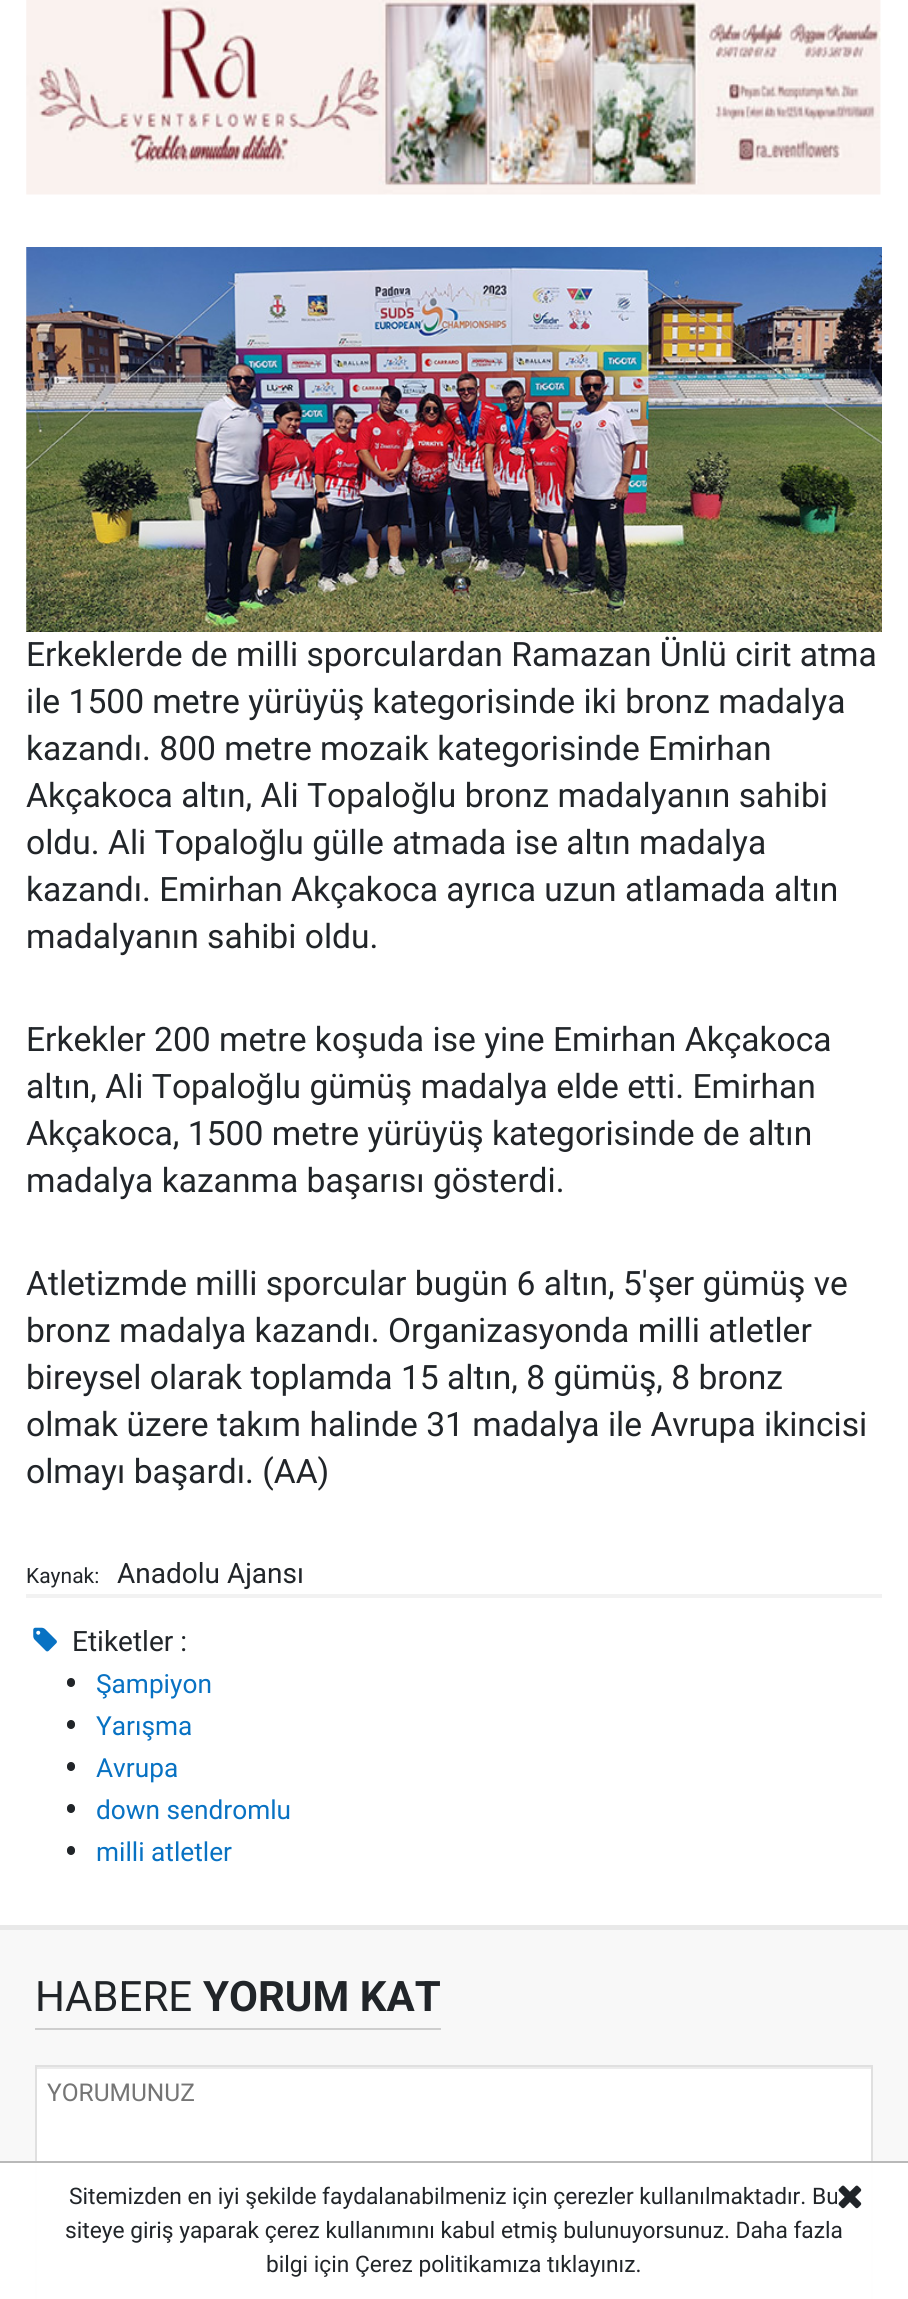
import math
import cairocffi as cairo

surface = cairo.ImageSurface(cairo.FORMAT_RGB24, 908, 2299)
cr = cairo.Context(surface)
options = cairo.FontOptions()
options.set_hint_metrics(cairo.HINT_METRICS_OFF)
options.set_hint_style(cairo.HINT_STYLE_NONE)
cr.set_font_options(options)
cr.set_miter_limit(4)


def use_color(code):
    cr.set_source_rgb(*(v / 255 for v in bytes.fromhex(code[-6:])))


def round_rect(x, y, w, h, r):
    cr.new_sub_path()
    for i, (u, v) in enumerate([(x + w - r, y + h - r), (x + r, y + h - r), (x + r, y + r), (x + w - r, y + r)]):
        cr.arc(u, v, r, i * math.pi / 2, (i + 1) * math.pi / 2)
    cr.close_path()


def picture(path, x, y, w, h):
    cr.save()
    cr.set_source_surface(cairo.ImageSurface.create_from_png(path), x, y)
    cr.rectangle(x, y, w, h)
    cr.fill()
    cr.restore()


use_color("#ffffff")
cr.paint()
picture("img1.png", 26, 0, 855, 195)
picture("img2.png", 26, 247, 856, 385)
cr.select_font_face("Roboto")
cr.set_font_size(33.6)
use_color("#212529")
cr.move_to(26, 666)
cr.show_text("Erkeklerde de milli sporculardan Ramazan Ünlü cirit atma")
cr.move_to(26, 713)
cr.show_text("ile 1500 metre yürüyüş kategorisinde iki bronz madalya")
cr.move_to(26, 760)
cr.show_text("kazandı. 800 metre mozaik kategorisinde Emirhan")
cr.move_to(26, 807)
cr.show_text("Akçakoca altın, Ali Topaloğlu bronz madalyanın sahibi")
cr.move_to(26, 854)
cr.show_text("oldu. Ali Topaloğlu gülle atmada ise altın madalya")
cr.move_to(26, 901)
cr.show_text("kazandı. Emirhan Akçakoca ayrıca uzun atlamada altın")
cr.move_to(26, 948)
cr.show_text("madalyanın sahibi oldu.")
cr.move_to(26, 1051)
cr.show_text("Erkekler 200 metre koşuda ise yine Emirhan Akçakoca")
cr.move_to(26, 1098)
cr.show_text("altın, Ali Topaloğlu gümüş madalya elde etti. Emirhan")
cr.move_to(26, 1145)
cr.show_text("Akçakoca, 1500 metre yürüyüş kategorisinde de altın")
cr.move_to(26, 1192)
cr.show_text("madalya kazanma başarısı gösterdi.")
cr.move_to(26, 1295)
cr.show_text("Atletizmde milli sporcular bugün 6 altın, 5'şer gümüş ve")
cr.move_to(26, 1342)
cr.show_text("bronz madalya kazandı. Organizasyonda milli atletler")
cr.move_to(26, 1389)
cr.show_text("bireysel olarak toplamda 15 altın, 8 gümüş, 8 bronz")
cr.move_to(26, 1436)
cr.show_text("olmak üzere takım halinde 31 madalya ile Avrupa ikincisi")
cr.move_to(26, 1483)
cr.show_text("olmayı başardı. (AA)")
use_color("#f2f2f2")
cr.new_path()
cr.move_to(26, 1556)
cr.line_to(26, 1598)
cr.line_to(882, 1598)
cr.line_to(882, 1594)
cr.line_to(26, 1594)
cr.close_path()
cr.fill()
cr.set_font_size(21)
use_color("#212529")
cr.move_to(26, 1583)
cr.show_text("Kaynak:")
cr.set_font_size(28)
cr.move_to(117, 1583)
cr.show_text("Anadolu Ajansı")
picture("img3.png", 33, 1627, 24, 25)
cr.move_to(72, 1651)
cr.show_text("Etiketler :")
round_rect(67, 1678, 8, 9, 4)
cr.fill()
cr.set_font_size(26.25)
use_color("#0872c3")
cr.move_to(96, 1693)
cr.show_text("Şampiyon")
use_color("#212529")
round_rect(67, 1720, 8, 9, 4)
cr.fill()
use_color("#0872c3")
cr.move_to(96, 1735)
cr.show_text("Yarışma")
use_color("#212529")
round_rect(67, 1762, 8, 9, 4)
cr.fill()
use_color("#0872c3")
cr.move_to(96, 1777)
cr.show_text("Avrupa")
use_color("#212529")
round_rect(67, 1804, 8, 9, 4)
cr.fill()
use_color("#0872c3")
cr.move_to(96, 1819)
cr.show_text("down sendromlu")
use_color("#212529")
round_rect(67, 1846, 8, 9, 4)
cr.fill()
use_color("#0872c3")
cr.move_to(96, 1861)
cr.show_text("milli atletler")
use_color("#f8f8f8")
cr.rectangle(0, 1930, 908, 369)
cr.fill()
use_color("#e9e9e9")
cr.rectangle(0, 1925, 908, 5)
cr.fill()
use_color("#cecece")
cr.rectangle(35, 2028, 406, 2)
cr.fill()
cr.set_font_size(42)
use_color("#212529")
cr.move_to(35, 2011)
cr.show_text("HABERE")
cr.select_font_face("Roboto", cairo.FONT_SLANT_NORMAL, cairo.FONT_WEIGHT_BOLD)
cr.move_to(203, 2011)
cr.show_text("YORUM KAT")
use_color("#ffffff")
cr.rectangle(37, 2069, 834, 230)
cr.fill()
use_color("#ececec")
cr.rectangle(37, 2067, 835, 2)
cr.fill()
cr.rectangle(36, 2066, 836, 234)
use_color("#e0e0e0")
cr.stroke()
cr.select_font_face("Roboto")
cr.set_font_size(24.5)
use_color("#757575")
cr.move_to(47, 2101)
cr.show_text("YORUMUNUZ")
cr.set_source_rgba(1, 1, 1, 0.95)
cr.rectangle(0, 2163, 908, 136)
cr.fill()
use_color("#b9b9b9")
cr.rectangle(0, 2161, 908, 2)
cr.fill()
cr.set_font_size(22.75)
use_color("#212529")
cr.move_to(69, 2204)
cr.show_text("Sitemizden en iyi şekilde faydalanabilmeniz için çerezler kullanılmaktadır. Bu")
cr.move_to(65, 2238)
cr.show_text("siteye giriş yaparak çerez kullanımını kabul etmiş bulunuyorsunuz. Daha fazla")
cr.move_to(266, 2272)
cr.show_text("bilgi için Çerez politikamıza tıklayınız.")
picture("img4.png", 838, 2185, 24, 24)
surface.write_to_png("result.png")
